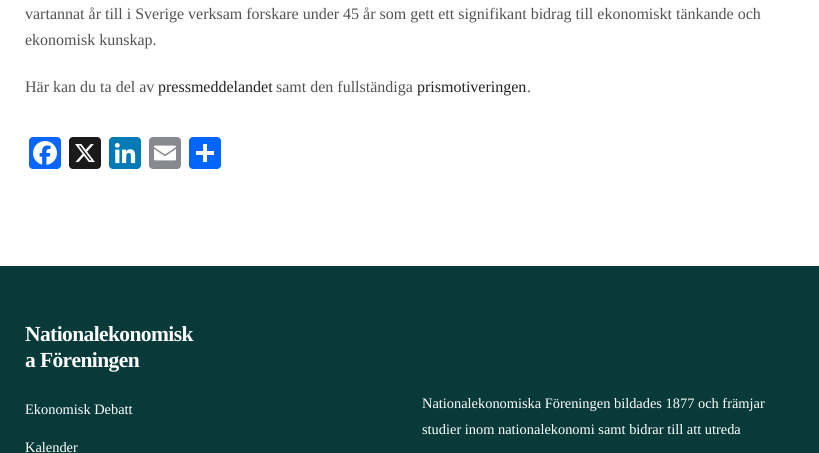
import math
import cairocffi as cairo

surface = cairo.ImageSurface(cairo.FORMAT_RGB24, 819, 453)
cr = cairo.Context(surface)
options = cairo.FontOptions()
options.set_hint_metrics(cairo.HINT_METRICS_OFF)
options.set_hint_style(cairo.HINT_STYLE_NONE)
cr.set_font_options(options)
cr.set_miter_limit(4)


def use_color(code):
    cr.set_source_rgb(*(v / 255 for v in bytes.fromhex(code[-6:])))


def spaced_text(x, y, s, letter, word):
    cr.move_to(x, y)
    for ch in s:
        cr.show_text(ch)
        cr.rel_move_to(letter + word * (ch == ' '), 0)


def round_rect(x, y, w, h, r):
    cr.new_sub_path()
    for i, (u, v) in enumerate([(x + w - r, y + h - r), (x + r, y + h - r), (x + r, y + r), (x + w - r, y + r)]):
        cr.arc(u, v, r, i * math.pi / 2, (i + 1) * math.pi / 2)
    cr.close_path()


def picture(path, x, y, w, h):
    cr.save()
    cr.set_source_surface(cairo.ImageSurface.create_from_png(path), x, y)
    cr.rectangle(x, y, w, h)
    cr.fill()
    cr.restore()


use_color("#ffffff")
cr.paint()
cr.select_font_face("Liberation Serif")
cr.set_font_size(16)
use_color("#525252")
cr.move_to(25, 19)
cr.show_text("vartannat år till i Sverige verksam forskare under 45 år som gett ett signifikant bidrag till ekonomiskt tänkande och")
cr.move_to(25, 45)
cr.show_text("ekonomisk kunskap.")
cr.move_to(25, 92)
cr.show_text("Här kan du ta del av")
use_color("#222222")
cr.move_to(158, 92)
cr.show_text("pressmeddelandet")
use_color("#525252")
cr.move_to(276, 92)
cr.show_text("samt den fullständiga")
use_color("#222222")
cr.move_to(417, 92)
cr.show_text("prismotiveringen")
use_color("#525252")
cr.move_to(527, 92)
cr.show_text(".")
use_color("#0866ff")
round_rect(29, 137, 32, 32, 4)
cr.fill()
picture("img1.png", 33, 141, 24, 24)
use_color("#1a1a1a")
round_rect(69, 137, 32, 32, 4)
cr.fill()
picture("img2.png", 75, 144, 20, 19)
use_color("#007bb5")
round_rect(109, 137, 32, 32, 4)
cr.fill()
picture("img3.png", 114, 142, 22, 22)
use_color("#888990")
round_rect(149, 137, 32, 32, 4)
cr.fill()
picture("img4.png", 154, 145, 22, 16)
use_color("#0166ff")
round_rect(189, 137, 32, 32, 4)
cr.fill()
use_color("#ffffff")
cr.rectangle(203, 144, 4, 18)
cr.fill()
cr.rectangle(196, 151, 18, 4)
cr.fill()
use_color("#093a3a")
cr.rectangle(0, 267, 819, 186)
cr.fill()
use_color("#093737")
cr.rectangle(0, 266, 819, 1)
cr.fill()
cr.select_font_face("Liberation Serif", cairo.FONT_SLANT_NORMAL, cairo.FONT_WEIGHT_BOLD)
cr.set_font_size(21.5)
use_color("#ffffff")
spaced_text(25, 341, "Nationalekonomisk", -0.6, 0)
spaced_text(25, 367, "a Föreningen", -0.6, 0)
cr.select_font_face("Liberation Serif")
cr.set_font_size(14.4)
cr.move_to(25, 414)
cr.show_text("Ekonomisk Debatt")
cr.move_to(25, 452)
cr.show_text("Kalender")
cr.move_to(422, 408)
cr.show_text("Nationalekonomiska Föreningen bildades 1877 och främjar")
cr.move_to(422, 434)
cr.show_text("studier inom nationalekonomi samt bidrar till att utreda")
surface.write_to_png("result.png")
